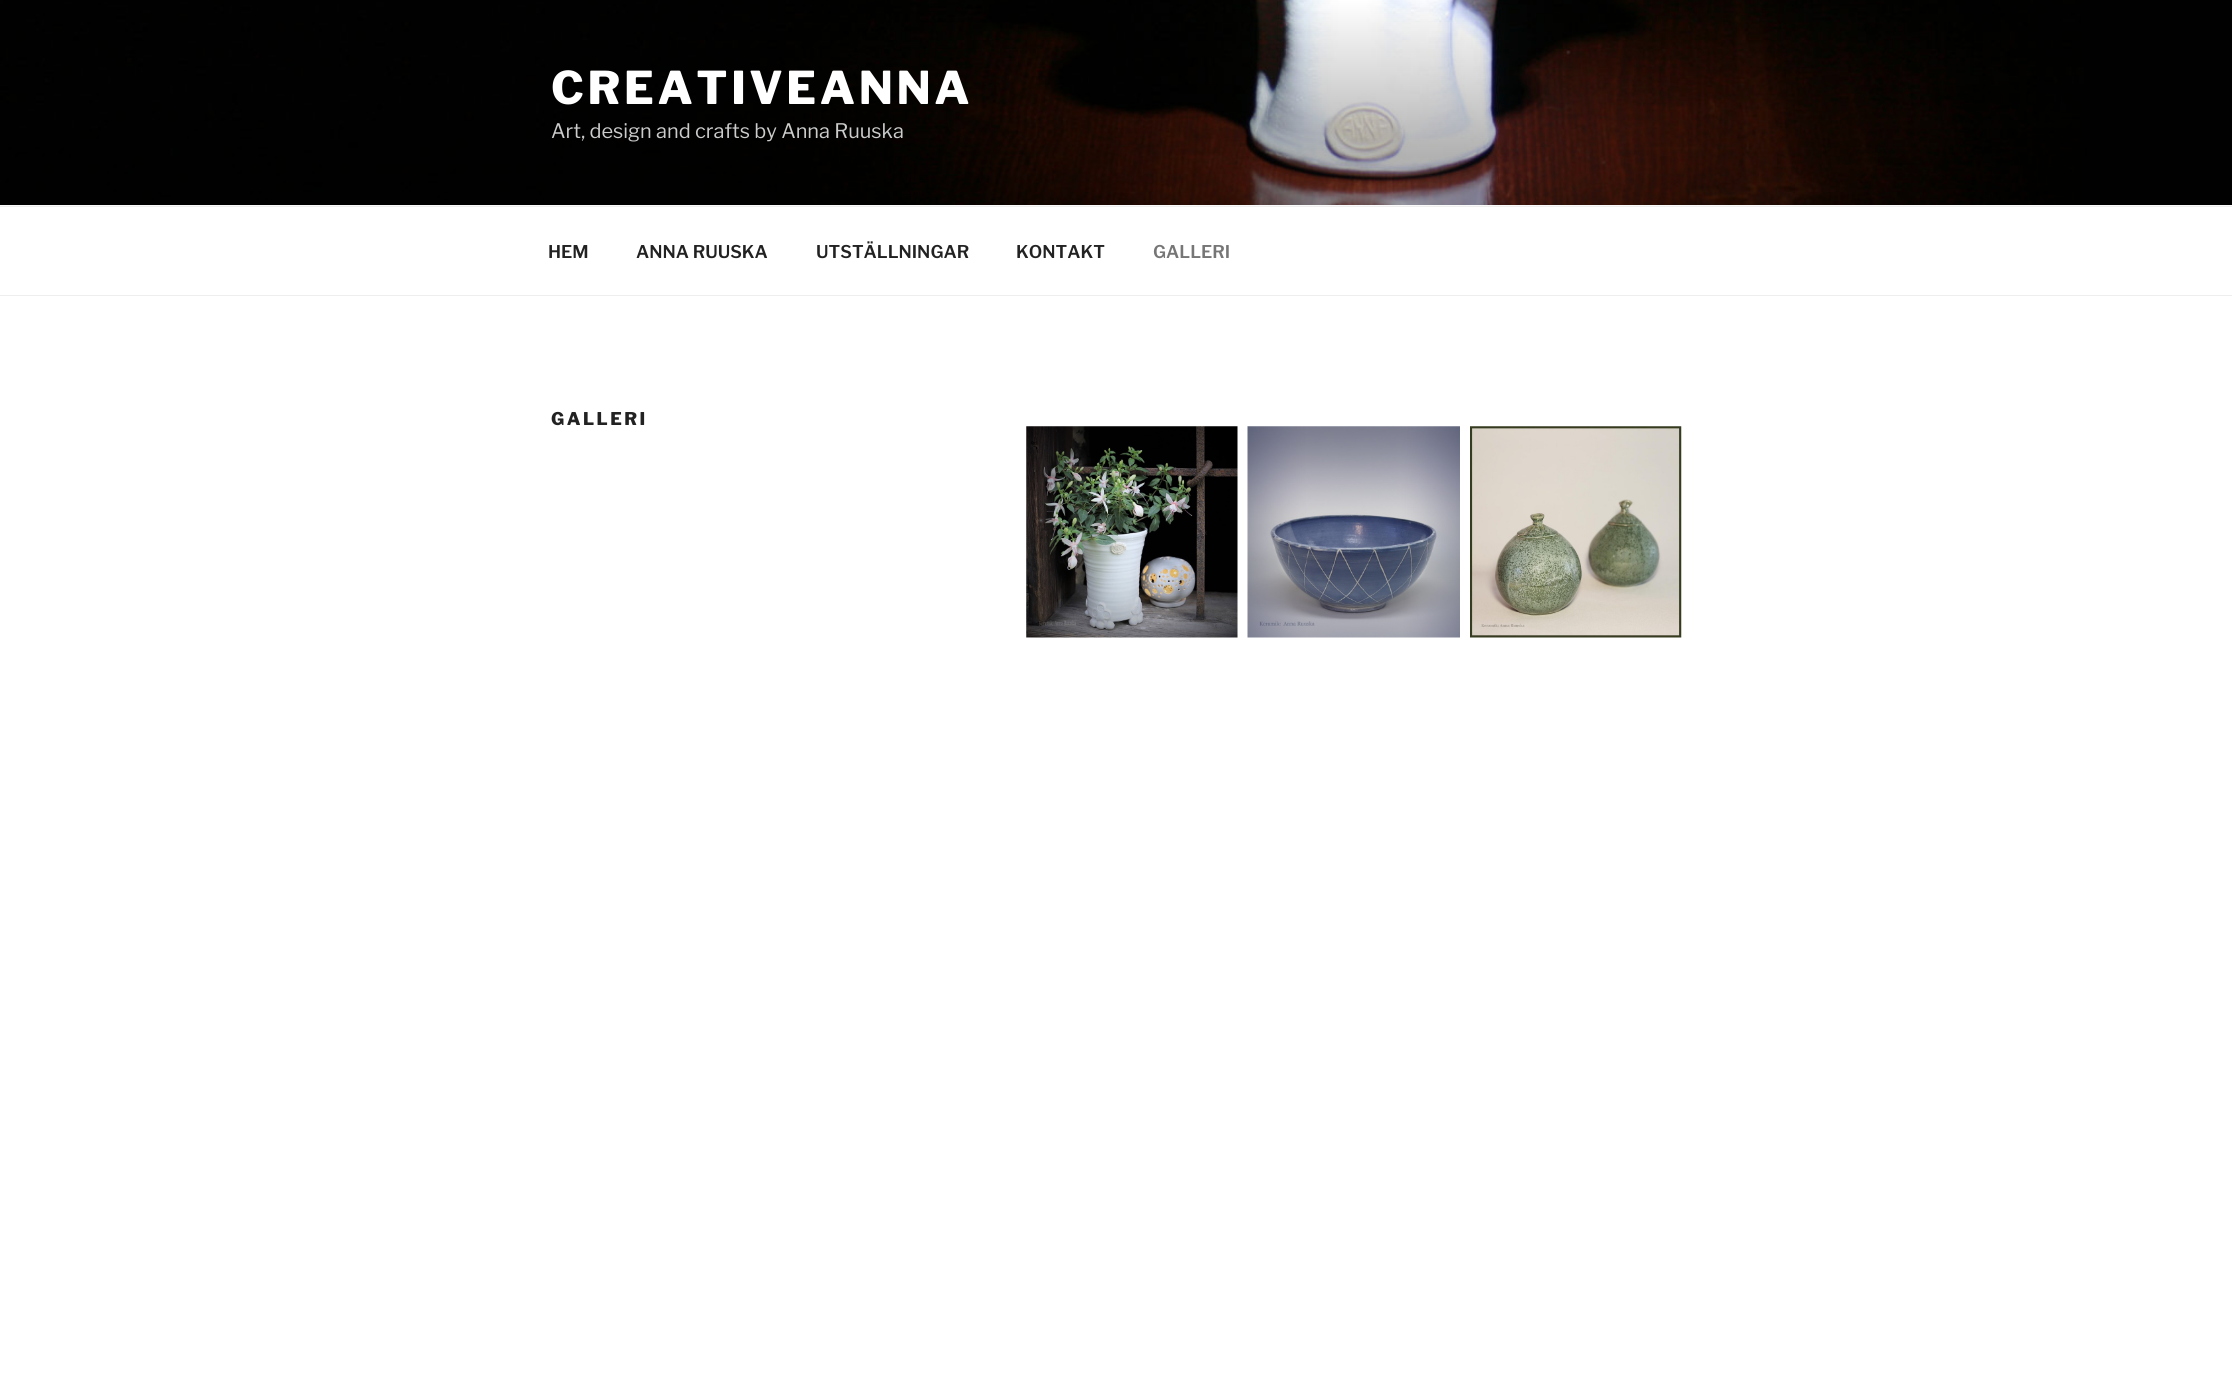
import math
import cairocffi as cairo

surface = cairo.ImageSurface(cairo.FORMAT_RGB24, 2232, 1399)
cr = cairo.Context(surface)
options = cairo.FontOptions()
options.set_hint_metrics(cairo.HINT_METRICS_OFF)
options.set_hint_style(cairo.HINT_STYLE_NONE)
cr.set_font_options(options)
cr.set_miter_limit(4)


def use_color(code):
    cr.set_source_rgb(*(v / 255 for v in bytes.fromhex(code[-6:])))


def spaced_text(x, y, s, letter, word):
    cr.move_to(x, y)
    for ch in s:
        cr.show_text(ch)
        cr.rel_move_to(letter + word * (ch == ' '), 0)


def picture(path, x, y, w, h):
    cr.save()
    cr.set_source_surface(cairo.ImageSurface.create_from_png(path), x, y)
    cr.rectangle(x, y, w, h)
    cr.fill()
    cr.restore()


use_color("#ffffff")
cr.paint()
use_color("#fafafa")
cr.rectangle(0, 205, 2232, 1)
cr.fill()
picture("img1.png", 0, 0, 2232, 205)
cr.select_font_face("Libre Franklin Thin")
cr.set_font_size(45)
use_color("#ffffff")
spaced_text(551, 104, "CREATIVEANNA", 3.6, 0)
cr.select_font_face("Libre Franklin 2 Thin")
cr.set_font_size(20)
use_color("#cccccc")
cr.move_to(551, 138)
cr.show_text("Art, design and crafts by Anna Ruuska")
use_color("#eeeeee")
cr.rectangle(0, 206, 2232, 1)
cr.fill()
cr.rectangle(0, 295, 2232, 1)
cr.fill()
cr.select_font_face("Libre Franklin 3 Thin")
cr.set_font_size(17.5)
use_color("#222222")
cr.move_to(548, 258)
cr.show_text("HEM")
cr.move_to(636, 258)
cr.show_text("ANNA RUUSKA")
cr.move_to(816, 258)
cr.show_text("UTSTÄLLNINGAR")
cr.move_to(1016, 258)
cr.show_text("KONTAKT")
use_color("#767676")
cr.move_to(1153, 258)
cr.show_text("GALLERI")
cr.select_font_face("Libre Franklin Thin")
use_color("#222222")
spaced_text(551, 425, "GALLERI", 2.5, 0)
picture("img2.png", 1026, 426, 212, 212)
picture("img3.png", 1247, 426, 213, 212)
picture("img4.png", 1470, 426, 212, 212)
surface.write_to_png("result.png")
